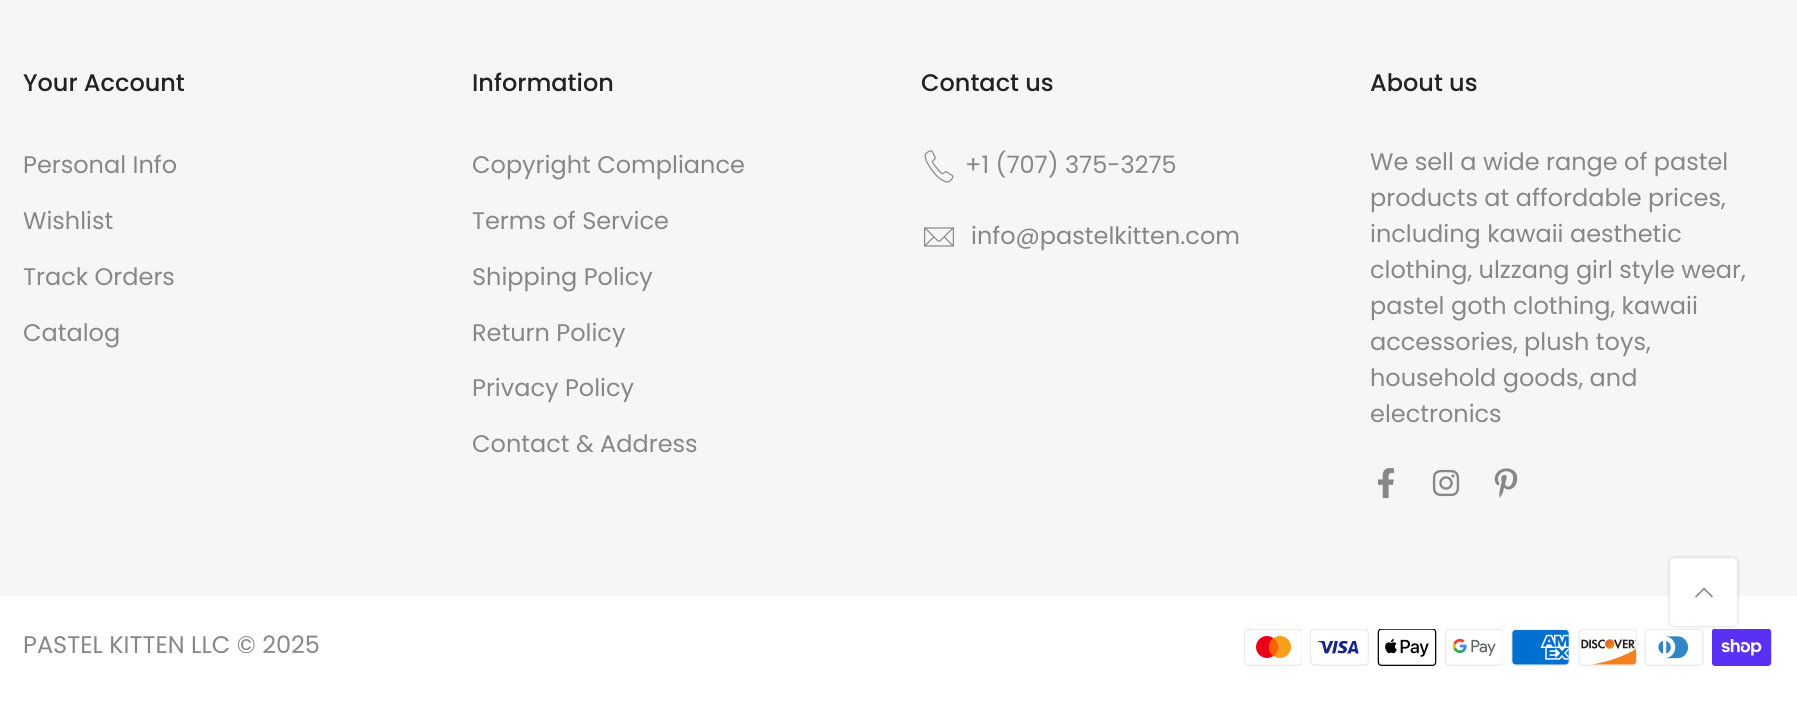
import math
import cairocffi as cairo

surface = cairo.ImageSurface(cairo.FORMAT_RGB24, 1797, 708)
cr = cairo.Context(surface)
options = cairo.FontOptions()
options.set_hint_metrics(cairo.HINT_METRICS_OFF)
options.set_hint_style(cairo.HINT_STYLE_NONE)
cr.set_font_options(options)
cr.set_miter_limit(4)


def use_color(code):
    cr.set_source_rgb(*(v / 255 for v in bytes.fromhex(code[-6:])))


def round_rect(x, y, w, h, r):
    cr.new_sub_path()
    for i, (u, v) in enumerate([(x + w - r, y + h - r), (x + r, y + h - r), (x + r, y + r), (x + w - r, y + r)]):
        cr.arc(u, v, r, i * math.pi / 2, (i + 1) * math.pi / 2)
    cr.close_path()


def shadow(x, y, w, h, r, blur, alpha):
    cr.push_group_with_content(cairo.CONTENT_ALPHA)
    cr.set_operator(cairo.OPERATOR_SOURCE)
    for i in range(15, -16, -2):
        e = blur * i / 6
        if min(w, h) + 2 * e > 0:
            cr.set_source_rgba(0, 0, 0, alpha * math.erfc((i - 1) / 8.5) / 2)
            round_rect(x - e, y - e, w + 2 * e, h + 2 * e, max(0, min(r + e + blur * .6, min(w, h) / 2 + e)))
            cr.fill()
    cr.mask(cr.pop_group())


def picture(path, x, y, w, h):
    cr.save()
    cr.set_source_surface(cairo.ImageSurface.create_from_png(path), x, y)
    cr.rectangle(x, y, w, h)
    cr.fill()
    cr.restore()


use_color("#ffffff")
cr.paint()
use_color("#f6f6f8")
cr.rectangle(0, 0, 1797, 596)
cr.fill()
cr.select_font_face("Poppins Medium")
cr.set_font_size(24)
use_color("#222222")
cr.move_to(23, 91)
cr.show_text("Your Account")
cr.select_font_face("Poppins")
use_color("#878787")
cr.move_to(23, 173)
cr.show_text("Personal Info")
cr.move_to(23, 229)
cr.show_text("Wishlist")
cr.move_to(23, 285)
cr.show_text("Track Orders")
cr.move_to(23, 341)
cr.show_text("Catalog")
cr.select_font_face("Poppins Medium")
use_color("#222222")
cr.move_to(472, 91)
cr.show_text("Information")
cr.select_font_face("Poppins")
use_color("#878787")
cr.move_to(472, 173)
cr.show_text("Copyright Compliance")
cr.move_to(472, 229)
cr.show_text("Terms of Service")
cr.move_to(472, 285)
cr.show_text("Shipping Policy")
cr.move_to(472, 341)
cr.show_text("Return Policy")
cr.move_to(472, 396)
cr.show_text("Privacy Policy")
cr.move_to(472, 452)
cr.show_text("Contact & Address")
cr.select_font_face("Poppins Medium")
use_color("#222222")
cr.move_to(921, 91)
cr.show_text("Contact us")
picture("img1.png", 924, 150, 30, 33)
cr.select_font_face("Poppins")
use_color("#878787")
cr.move_to(965, 173)
cr.show_text("+1 (707) 375-3275")
picture("img2.png", 924, 227, 30, 20)
cr.move_to(971, 244)
cr.show_text("info@pastelkitten.com")
cr.select_font_face("Poppins Medium")
use_color("#222222")
cr.move_to(1370, 91)
cr.show_text("About us")
cr.select_font_face("Poppins")
use_color("#878787")
cr.move_to(1370, 170)
cr.show_text("We sell a wide range of pastel")
cr.move_to(1370, 206)
cr.show_text("products at affordable prices,")
cr.move_to(1370, 242)
cr.show_text("including kawaii aesthetic")
cr.move_to(1370, 278)
cr.show_text("clothing, ulzzang girl style wear,")
cr.move_to(1370, 314)
cr.show_text("pastel goth clothing, kawaii")
cr.move_to(1370, 350)
cr.show_text("accessories, plush toys,")
cr.move_to(1370, 386)
cr.show_text("household goods, and")
cr.move_to(1370, 422)
cr.show_text("electronics")
picture("img3.png", 1378, 468, 16, 30)
picture("img4.png", 1432, 469, 28, 28)
picture("img5.png", 1494, 468, 24, 30)
cr.move_to(23, 653)
cr.show_text("PASTEL KITTEN LLC © 2025")
picture("img6.png", 1244, 629, 58, 37)
picture("img7.png", 1310, 629, 59, 37)
picture("img8.png", 1377, 629, 60, 37)
picture("img9.png", 1445, 629, 58, 37)
picture("img10.png", 1511, 629, 59, 37)
picture("img11.png", 1578, 629, 59, 37)
picture("img12.png", 1644, 629, 60, 37)
picture("img13.png", 1712, 629, 60, 37)
use_color("#000000")
shadow(1670, 558, 67, 68, 5, 2, 0.2)
use_color("#ffffff")
round_rect(1670, 558, 67, 68, 5)
cr.fill()
picture("img14.png", 1695, 587, 18, 11)
surface.write_to_png("result.png")
